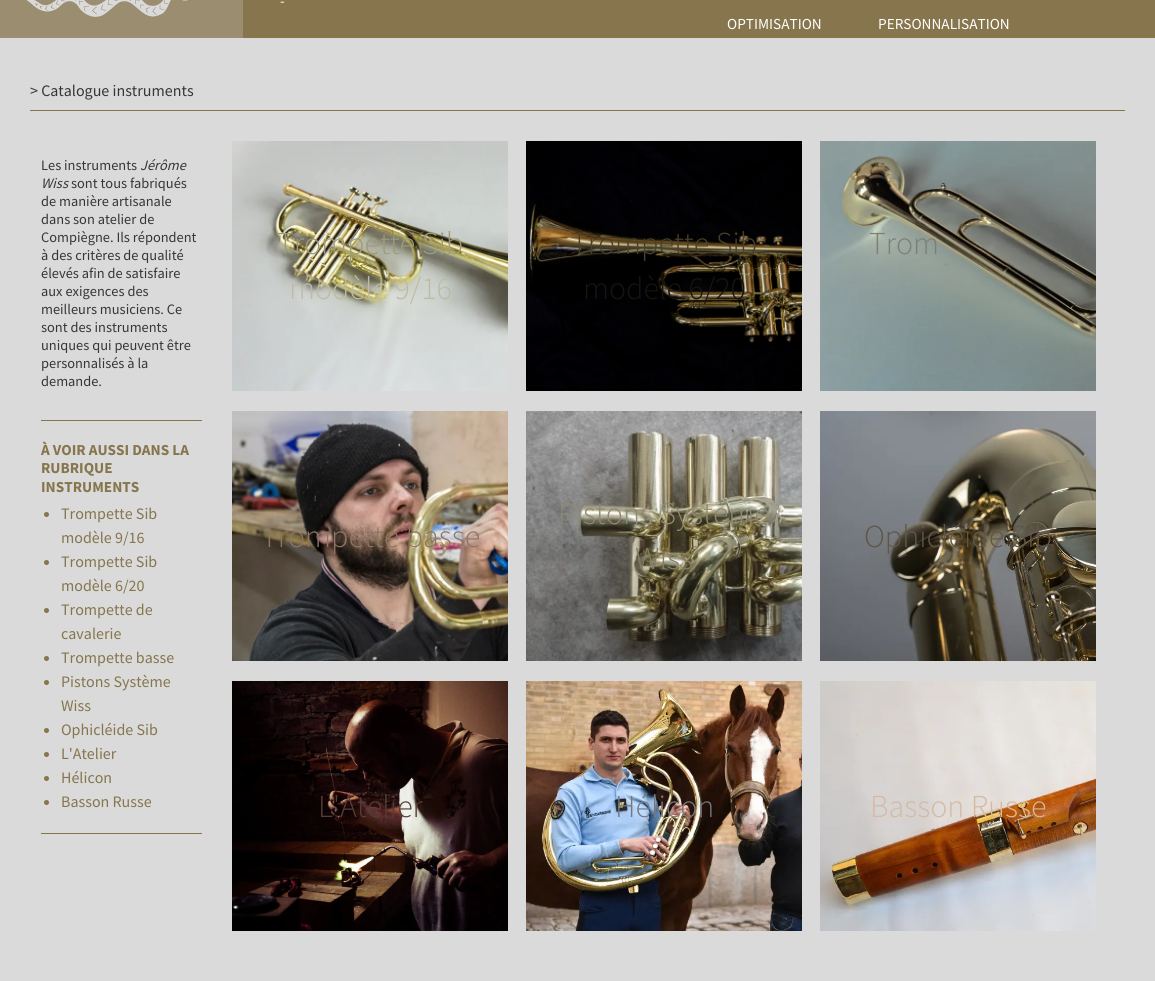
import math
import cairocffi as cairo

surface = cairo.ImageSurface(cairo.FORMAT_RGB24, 1155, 981)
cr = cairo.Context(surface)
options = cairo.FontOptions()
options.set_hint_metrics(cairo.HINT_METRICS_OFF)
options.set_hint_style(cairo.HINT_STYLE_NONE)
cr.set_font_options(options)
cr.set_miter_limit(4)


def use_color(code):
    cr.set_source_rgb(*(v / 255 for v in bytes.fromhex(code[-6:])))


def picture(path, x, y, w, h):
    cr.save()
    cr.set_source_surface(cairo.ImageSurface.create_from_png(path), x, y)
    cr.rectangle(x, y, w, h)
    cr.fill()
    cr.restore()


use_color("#dadada")
cr.paint()
picture("img1.png", 0, 0, 243, 38)
use_color("#86754d")
cr.rectangle(243, 0, 912, 38)
cr.fill()
cr.select_font_face("Source Sans Pro")
cr.set_font_size(15.25)
use_color("#ffffff")
cr.move_to(280, 6)
cr.show_text("-")
cr.move_to(727, 29)
cr.show_text("OPTIMISATION")
cr.move_to(878, 29)
cr.show_text("PERSONNALISATION")
use_color("#86754d")
cr.rectangle(30, 110, 1095, 1)
cr.fill()
cr.set_font_size(16)
use_color("#363639")
cr.move_to(30, 96)
cr.show_text("> Catalogue instruments")
cr.set_font_size(14.4)
cr.move_to(41, 170)
cr.show_text("Les instruments")
cr.select_font_face("Source Sans Pro", cairo.FONT_SLANT_ITALIC)
cr.move_to(140, 170)
cr.show_text("Jérôme")
cr.move_to(41, 188)
cr.show_text("Wiss")
cr.select_font_face("Source Sans Pro")
cr.move_to(71, 188)
cr.show_text("sont tous fabriqués")
cr.move_to(41, 206)
cr.show_text("de manière artisanale")
cr.move_to(41, 224)
cr.show_text("dans son atelier de")
cr.move_to(41, 242)
cr.show_text("Compiègne. Ils répondent")
cr.move_to(41, 260)
cr.show_text("à des critères de qualité")
cr.move_to(41, 278)
cr.show_text("élevés afin de satisfaire")
cr.move_to(41, 296)
cr.show_text("aux exigences des")
cr.move_to(41, 314)
cr.show_text("meilleurs musiciens. Ce")
cr.move_to(41, 332)
cr.show_text("sont des instruments")
cr.move_to(41, 350)
cr.show_text("uniques qui peuvent être")
cr.move_to(41, 368)
cr.show_text("personnalisés à la")
cr.move_to(41, 386)
cr.show_text("demande.")
use_color("#86754d")
cr.rectangle(41, 420, 161, 1)
cr.fill()
cr.rectangle(41, 833, 161, 1)
cr.fill()
cr.select_font_face("Source Sans Pro", cairo.FONT_SLANT_NORMAL, cairo.FONT_WEIGHT_BOLD)
cr.set_font_size(15.25)
cr.move_to(41, 455)
cr.show_text("À VOIR AUSSI DANS LA")
cr.move_to(41, 473)
cr.show_text("RUBRIQUE")
cr.move_to(41, 492)
cr.show_text("INSTRUMENTS")
cr.new_path()
cr.arc(46.5, 514.5, 2.5, 0, 2 * math.pi)
cr.fill()
cr.select_font_face("Source Sans Pro")
cr.set_font_size(16)
cr.move_to(61, 519)
cr.show_text("Trompette Sib")
cr.move_to(61, 543)
cr.show_text("modèle 9/16")
cr.new_path()
cr.arc(46.5, 562.5, 2.5, 0, 2 * math.pi)
cr.fill()
cr.move_to(61, 567)
cr.show_text("Trompette Sib")
cr.move_to(61, 591)
cr.show_text("modèle 6/20")
cr.new_path()
cr.arc(46.5, 610.5, 2.5, 0, 2 * math.pi)
cr.fill()
cr.move_to(61, 615)
cr.show_text("Trompette de")
cr.move_to(61, 639)
cr.show_text("cavalerie")
cr.new_path()
cr.arc(46.5, 658.5, 2.5, 0, 2 * math.pi)
cr.fill()
cr.move_to(61, 663)
cr.show_text("Trompette basse")
cr.new_path()
cr.arc(46.5, 682.5, 2.5, 0, 2 * math.pi)
cr.fill()
cr.move_to(61, 687)
cr.show_text("Pistons Système")
cr.move_to(61, 711)
cr.show_text("Wiss")
cr.new_path()
cr.arc(46.5, 730.5, 2.5, 0, 2 * math.pi)
cr.fill()
cr.move_to(61, 735)
cr.show_text("Ophicléide Sib")
cr.new_path()
cr.arc(46.5, 754.5, 2.5, 0, 2 * math.pi)
cr.fill()
cr.move_to(61, 759)
cr.show_text("L'Atelier")
cr.new_path()
cr.arc(46.5, 778.5, 2.5, 0, 2 * math.pi)
cr.fill()
cr.move_to(61, 783)
cr.show_text("Hélicon")
cr.new_path()
cr.arc(46.5, 802.5, 2.5, 0, 2 * math.pi)
cr.fill()
cr.move_to(61, 807)
cr.show_text("Basson Russe")
picture("img2.png", 232, 141, 276, 250)
cr.select_font_face("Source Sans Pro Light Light")
cr.set_font_size(32)
use_color("#9e9b7a")
cr.move_to(277, 254)
cr.show_text("Trompette Sib")
use_color("#bbbca6")
cr.move_to(289, 299)
cr.show_text("modèle 9/16")
picture("img3.png", 526, 141, 276, 250)
use_color("#4a3f28")
cr.move_to(571, 254)
cr.show_text("Trompette Sib")
use_color("#18140e")
cr.move_to(583, 299)
cr.show_text("modèle 6/20")
picture("img4.png", 820, 141, 276, 250)
use_color("#7c7f75")
cr.move_to(869, 254)
cr.show_text("Trom")
picture("img5.png", 232, 411, 276, 250)
use_color("#8c7565")
cr.move_to(261, 547)
cr.show_text("Trompette basse")
picture("img6.png", 526, 411, 276, 250)
use_color("#8c8872")
cr.move_to(558, 524)
cr.show_text("Pistons Système")
use_color("#847f64")
cr.move_to(635, 569)
cr.show_text("Wiss")
picture("img7.png", 820, 411, 276, 250)
use_color("#5e574a")
cr.move_to(864, 547)
cr.show_text("Ophicléide Sib")
picture("img8.png", 232, 681, 276, 250)
use_color("#553d39")
cr.move_to(318, 817)
cr.show_text("L'Atelier")
picture("img9.png", 526, 681, 276, 250)
use_color("#76787e")
cr.move_to(615, 817)
cr.show_text("Hélicon")
picture("img10.png", 820, 681, 276, 250)
use_color("#d3baa3")
cr.move_to(870, 817)
cr.show_text("Basson Russe")
surface.write_to_png("result.png")
